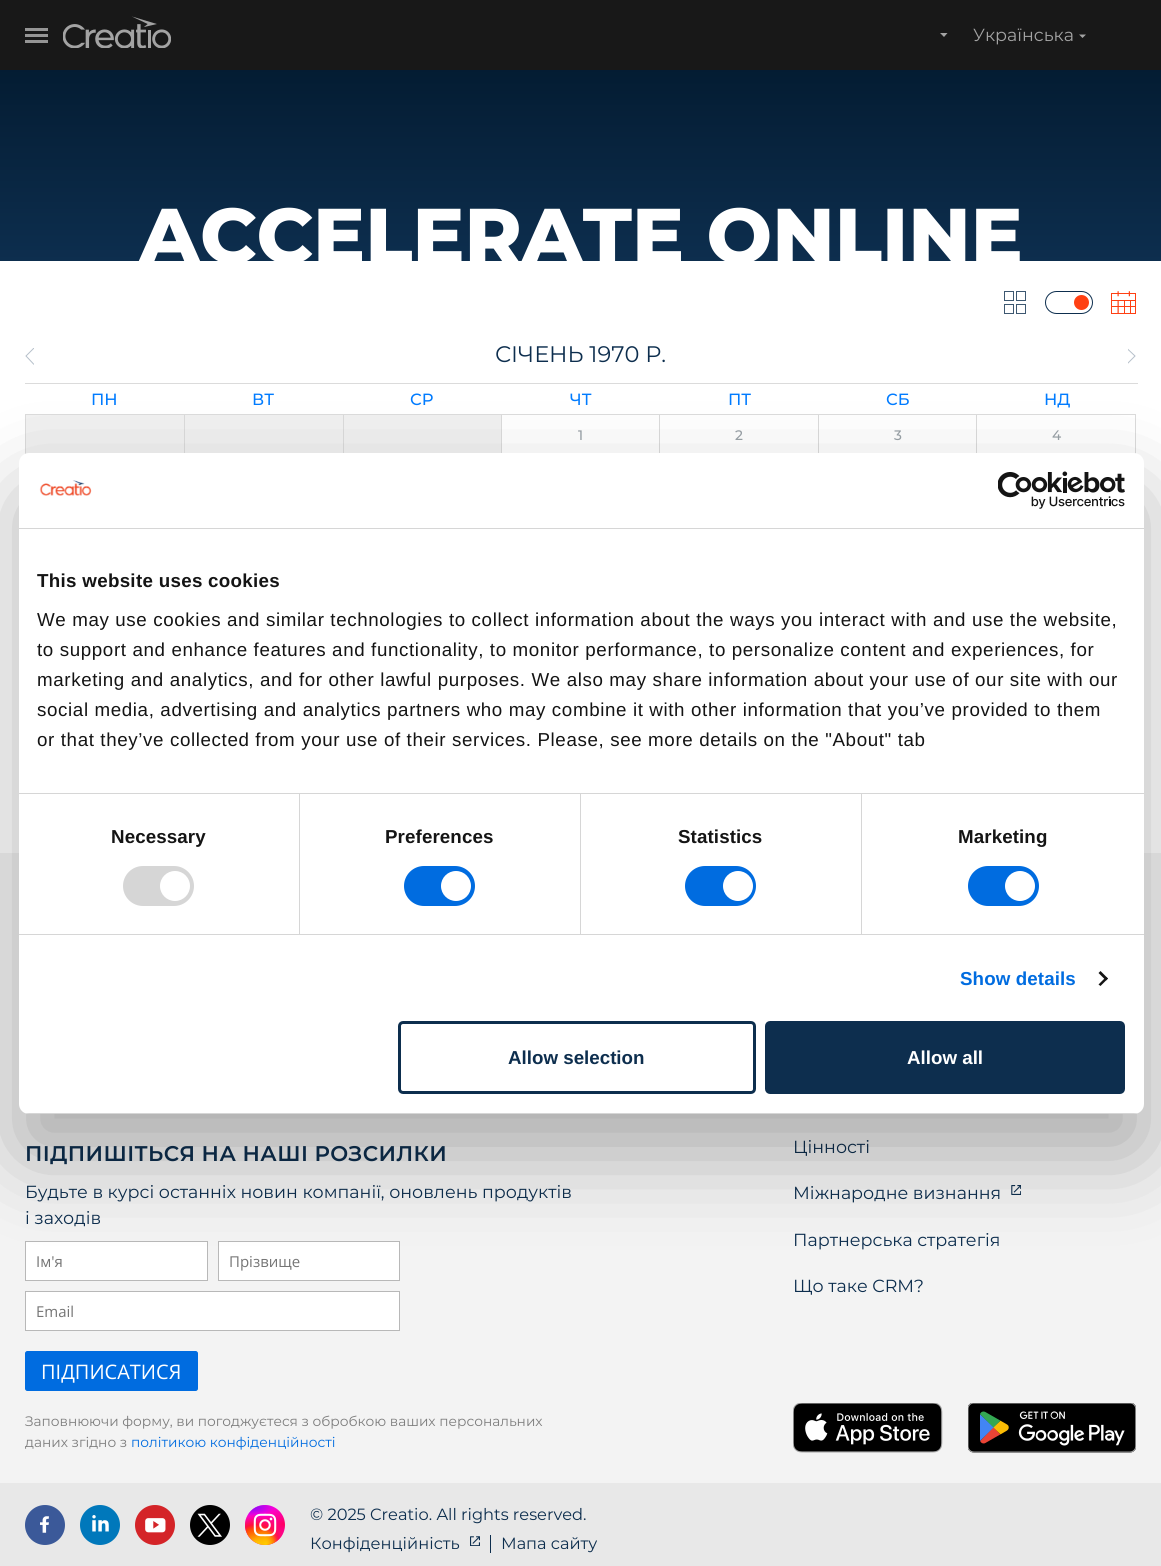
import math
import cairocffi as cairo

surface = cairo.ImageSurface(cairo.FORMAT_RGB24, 1161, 1566)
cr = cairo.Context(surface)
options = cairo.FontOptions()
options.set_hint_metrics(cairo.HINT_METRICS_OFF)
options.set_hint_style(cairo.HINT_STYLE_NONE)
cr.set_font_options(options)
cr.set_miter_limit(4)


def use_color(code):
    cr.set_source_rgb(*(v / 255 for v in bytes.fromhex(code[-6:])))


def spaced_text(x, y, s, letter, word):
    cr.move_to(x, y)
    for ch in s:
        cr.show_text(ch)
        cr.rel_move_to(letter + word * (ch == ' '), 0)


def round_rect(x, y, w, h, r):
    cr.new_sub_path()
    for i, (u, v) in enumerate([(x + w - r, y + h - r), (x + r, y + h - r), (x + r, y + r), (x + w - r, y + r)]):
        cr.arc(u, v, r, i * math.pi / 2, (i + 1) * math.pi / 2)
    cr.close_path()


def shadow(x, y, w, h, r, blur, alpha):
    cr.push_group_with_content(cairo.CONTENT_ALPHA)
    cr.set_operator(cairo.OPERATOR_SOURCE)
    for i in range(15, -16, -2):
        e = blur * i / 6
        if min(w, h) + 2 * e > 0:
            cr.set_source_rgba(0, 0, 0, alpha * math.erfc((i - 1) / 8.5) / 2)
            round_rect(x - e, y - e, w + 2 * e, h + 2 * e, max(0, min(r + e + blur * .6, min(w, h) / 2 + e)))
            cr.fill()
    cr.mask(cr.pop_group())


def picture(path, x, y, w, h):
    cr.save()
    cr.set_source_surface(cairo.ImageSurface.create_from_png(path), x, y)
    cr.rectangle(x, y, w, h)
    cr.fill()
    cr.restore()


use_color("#ffffff")
cr.paint()
use_color("#181818")
cr.rectangle(0, 0, 1161, 70)
cr.fill()
use_color("#959595")
cr.rectangle(25, 28, 23, 3)
cr.fill()
cr.rectangle(25, 34, 23, 3)
cr.fill()
cr.rectangle(25, 40, 23, 3)
cr.fill()
picture("img1.png", 63, 16, 108, 32)
use_color("#a3a3a3")
cr.new_path()
cr.move_to(940, 33)
cr.line_to(947.5, 33)
cr.line_to(944, 37)
cr.close_path()
cr.fill()
cr.select_font_face("Montserrat")
cr.set_font_size(17.5)
cr.move_to(973, 41)
cr.show_text("Українська")
cr.new_path()
cr.move_to(1079, 34.5)
cr.line_to(1086, 34.5)
cr.line_to(1082.5, 38)
cr.close_path()
cr.fill()
gradient = cairo.LinearGradient(581, 261, 581, -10)
gradient.add_color_stop_rgba(0, 0.051, 0.18, 0.306, 1)
gradient.add_color_stop_rgba(1, 0, 0.082, 0.153, 1)
cr.set_source(gradient)
cr.rectangle(0, 70, 1161, 191)
cr.fill()
cr.save()
cr.rectangle(0, 0, 1161, 261)
cr.clip()
cr.select_font_face("Montserrat ExtraBold")
cr.set_font_size(77.5)
use_color("#ffffff")
cr.move_to(139, 263)
cr.show_text("ACCELERATE ONLINE")
cr.restore()
cr.rectangle(1004.5, 291.5, 9, 9)
use_color("#3d5871")
cr.set_line_width(1)
cr.stroke()
cr.rectangle(1016.5, 291.5, 9, 9)
cr.stroke()
cr.rectangle(1004.5, 304.5, 9, 9)
cr.stroke()
cr.rectangle(1016.5, 304.5, 9, 9)
cr.stroke()
round_rect(1045.5, 291.5, 47, 22, 11)
use_color("#0d2e4e")
cr.stroke()
use_color("#ff4013")
cr.arc(1081.5, 302.5, 7.5, 0, 2 * math.pi)
cr.fill()
picture("img2.png", 1111, 291, 25, 23)
cr.save()
cr.rectangle(25, 348, 9, 17)
cr.clip()
cr.new_path()
cr.move_to(34, 348)
cr.line_to(26, 356)
cr.line_to(34, 364.5)
use_color("#b6c0ca")
cr.stroke()
cr.restore()
cr.set_font_size(22.5)
use_color("#0d2e4e")
cr.move_to(495, 362)
cr.show_text("СІЧЕНЬ 1970 Р.")
cr.save()
cr.rectangle(1128, 348, 8, 17)
cr.clip()
cr.new_path()
cr.move_to(1126.5, 348)
cr.line_to(1135, 356)
cr.line_to(1126.5, 364.5)
use_color("#b6c0ca")
cr.stroke()
cr.restore()
use_color("#dbdbdb")
cr.rectangle(25, 383, 1113, 1)
cr.fill()
cr.select_font_face("Montserrat Medium")
cr.set_font_size(16.25)
use_color("#007bff")
cr.move_to(91, 405)
cr.show_text("ПН")
cr.move_to(252, 405)
cr.show_text("ВТ")
cr.move_to(410, 405)
cr.show_text("СР")
cr.move_to(570, 405)
cr.show_text("ЧТ")
cr.move_to(728, 405)
cr.show_text("ПТ")
cr.move_to(886, 405)
cr.show_text("СБ")
cr.move_to(1044, 405)
cr.show_text("НД")
use_color("#dbdbdb")
cr.rectangle(25, 414, 1111, 1)
cr.fill()
cr.rectangle(1135, 414, 1, 40)
cr.fill()
cr.rectangle(25, 414, 1, 40)
cr.fill()
use_color("#f1f1f1")
cr.rectangle(26, 415, 158, 39)
cr.fill()
cr.rectangle(185, 415, 158, 38)
cr.fill()
use_color("#dbdbdb")
cr.rectangle(184, 414, 1, 39)
cr.fill()
use_color("#f1f1f1")
cr.rectangle(344, 415, 157, 38)
cr.fill()
use_color("#dbdbdb")
cr.rectangle(343, 414, 1, 39)
cr.fill()
cr.rectangle(501, 414, 1, 39)
cr.fill()
cr.set_font_size(13.75)
use_color("#99a1a7")
cr.move_to(578, 440)
cr.show_text("1")
use_color("#dbdbdb")
cr.rectangle(659, 414, 1, 39)
cr.fill()
use_color("#99a1a7")
cr.move_to(735, 440)
cr.show_text("2")
use_color("#dbdbdb")
cr.rectangle(818, 414, 1, 39)
cr.fill()
use_color("#99a1a7")
cr.move_to(894, 440)
cr.show_text("3")
use_color("#dbdbdb")
cr.rectangle(976, 414, 1, 39)
cr.fill()
use_color("#99a1a7")
cr.move_to(1052, 440)
cr.show_text("4")
use_color("#f3f3f3")
cr.rectangle(0, 853, 1161, 630)
cr.fill()
cr.select_font_face("Montserrat SemiBold")
cr.set_font_size(21.25)
use_color("#0d2e4e")
spaced_text(25, 1161, "ПІДПИШІТЬСЯ НА НАШІ РОЗСИЛКИ", 0.4, 0)
cr.select_font_face("Montserrat")
cr.set_font_size(17.5)
cr.move_to(25, 1198)
cr.show_text("Будьте в курсі останніх новин компанії, оновлень продуктів")
cr.move_to(25, 1224)
cr.show_text("і заходів")
use_color("#ffffff")
cr.rectangle(25.5, 1241.5, 182, 39)
cr.fill_preserve()
use_color("#b8b8b8")
cr.stroke()
cr.select_font_face("Open Sans")
cr.set_font_size(15)
use_color("#757575")
cr.move_to(36, 1267)
cr.show_text("Ім'я")
use_color("#ffffff")
cr.rectangle(218.5, 1241.5, 181, 39)
cr.fill_preserve()
use_color("#b8b8b8")
cr.stroke()
use_color("#757575")
cr.move_to(229, 1267)
cr.show_text("Прізвище")
use_color("#ffffff")
cr.rectangle(25.5, 1291.5, 374, 39)
cr.fill_preserve()
use_color("#b8b8b8")
cr.stroke()
use_color("#757575")
cr.move_to(36, 1317)
cr.show_text("Email")
use_color("#006ce0")
round_rect(25.5, 1351.5, 172, 39, 2)
cr.fill_preserve()
cr.stroke()
cr.set_font_size(20)
use_color("#ffffff")
cr.move_to(41, 1379)
cr.show_text("ПІДПИСАТИСЯ")
cr.select_font_face("Montserrat")
cr.set_font_size(13.75)
use_color("#7d7d7d")
cr.move_to(25, 1426)
cr.show_text("Заповнюючи форму, ви погоджуєтеся з обробкою ваших персональних")
cr.move_to(25, 1447)
cr.show_text("даних згідно з")
use_color("#006ce0")
cr.move_to(131, 1447)
cr.show_text("політикою конфіденційності")
cr.set_font_size(17.5)
use_color("#0d2e4e")
cr.move_to(793, 1153)
cr.show_text("Цінності")
cr.move_to(793, 1199)
cr.show_text("Міжнародне визнання")
picture("img3.png", 1011, 1185, 10, 10)
cr.move_to(793, 1246)
cr.show_text("Партнерська стратегія")
cr.move_to(793, 1292)
cr.show_text("Що таке CRM?")
picture("img4.png", 793, 1403, 150, 50)
picture("img5.png", 968, 1403, 168, 50)
use_color("#e8e8e8")
cr.rectangle(0, 1483, 1161, 83)
cr.fill()
picture("img6.png", 25, 1505, 40, 40)
picture("img7.png", 80, 1505, 40, 40)
picture("img8.png", 135, 1505, 40, 40)
picture("img9.png", 190, 1505, 40, 40)
picture("img10.png", 245, 1505, 40, 40)
cr.set_font_size(16.25)
use_color("#0d2e4e")
cr.move_to(310, 1520)
cr.show_text("© 2025 Creatio. All rights reserved.")
cr.move_to(310, 1549)
cr.show_text("Конфіденційність")
picture("img11.png", 470, 1536, 10, 10)
cr.rectangle(490, 1535, 1, 18)
cr.fill()
cr.move_to(501, 1549)
cr.show_text("Мапа сайту")
use_color("#000000")
shadow(19, 493, 1125, 661, 10, 42.5, 0.3)
use_color("#ffffff")
round_rect(19, 453, 1125, 661, 10)
cr.fill()
use_color("#d6d6d6")
cr.rectangle(19, 528, 1125, 1)
cr.fill()
picture("img12.png", 39, 480, 53, 16)
picture("img13.png", 998, 471, 127, 38)
cr.rectangle(19, 793, 1125, 1)
cr.fill()
cr.select_font_face("Liberation Sans", cairo.FONT_SLANT_NORMAL, cairo.FONT_WEIGHT_BOLD)
cr.set_font_size(18.75)
use_color("#141414")
spaced_text(37, 587, "This website uses cookies", 0.3, 0)
cr.select_font_face("Liberation Sans")
spaced_text(37, 626, "We may use cookies and similar technologies to collect information about the ways you interact with and use the website,", 0.62, 0)
spaced_text(37, 656, "to support and enhance features and functionality, to monitor performance, to personalize content and experiences, for", 0.62, 0)
spaced_text(37, 686, "marketing and analytics, and for other lawful purposes. We also may share information about your use of our site with our", 0.62, 0)
spaced_text(37, 716, "social media, advertising and analytics partners who may combine it with other information that you’ve provided to them", 0.62, 0)
spaced_text(37, 746, "or that they’ve collected from your use of their services. Please, see more details on the \"About\" tab", 0.62, 0)
use_color("#d6d6d6")
cr.rectangle(19, 934, 1125, 1)
cr.fill()
cr.rectangle(299, 794, 1, 140)
cr.fill()
cr.select_font_face("Liberation Sans", cairo.FONT_SLANT_NORMAL, cairo.FONT_WEIGHT_BOLD)
use_color("#141414")
spaced_text(111, 843, "Necessary", 0.1, 0)
use_color("#d6d6d6")
round_rect(123, 866, 71, 40, 20)
cr.fill()
use_color("#ffffff")
cr.arc(175, 886, 15, 0, 2 * math.pi)
cr.fill()
use_color("#d6d6d6")
cr.rectangle(580, 794, 1, 140)
cr.fill()
use_color("#141414")
spaced_text(385, 843, "Preferences", 0.1, 0)
use_color("#006ce0")
round_rect(404, 866, 71, 40, 20)
cr.fill()
use_color("#ffffff")
cr.arc(456, 886, 15, 0, 2 * math.pi)
cr.fill()
use_color("#d6d6d6")
cr.rectangle(861, 794, 1, 140)
cr.fill()
use_color("#141414")
spaced_text(678, 843, "Statistics", 0.1, 0)
use_color("#006ce0")
round_rect(685, 866, 71, 40, 20)
cr.fill()
use_color("#ffffff")
cr.arc(738, 886, 15, 0, 2 * math.pi)
cr.fill()
use_color("#141414")
spaced_text(958, 843, "Marketing", 0.1, 0)
use_color("#006ce0")
round_rect(968, 866, 71, 40, 20)
cr.fill()
use_color("#ffffff")
cr.arc(1020, 886, 15, 0, 2 * math.pi)
cr.fill()
use_color("#006ce0")
spaced_text(960, 985, "Show details", 0.1, 0)
use_color("#141414")
cr.new_path()
cr.move_to(1100.5, 971)
cr.line_to(1108, 978.5)
cr.line_to(1106, 980.5)
cr.line_to(1098.5, 973)
cr.close_path()
cr.fill()
cr.new_path()
cr.move_to(1106, 977)
cr.line_to(1108, 978.5)
cr.line_to(1100.5, 986)
cr.line_to(1098.5, 984.5)
cr.close_path()
cr.fill()
cr.save()
round_rect(19, 453, 1125, 661, 10)
cr.clip()
use_color("#d6d6d6")
cr.rectangle(19, 1113, 1125, 1)
cr.fill()
cr.restore()
round_rect(399.5, 1022.5, 355, 70, 3.5)
use_color("#0d2e4e")
cr.set_line_width(3)
cr.stroke()
cr.move_to(508, 1064)
cr.show_text("Allow selection")
round_rect(766.5, 1022.5, 357, 70, 3.5)
cr.fill_preserve()
cr.stroke()
use_color("#ffffff")
cr.move_to(907, 1064)
cr.show_text("Allow all")
surface.write_to_png("result.png")
